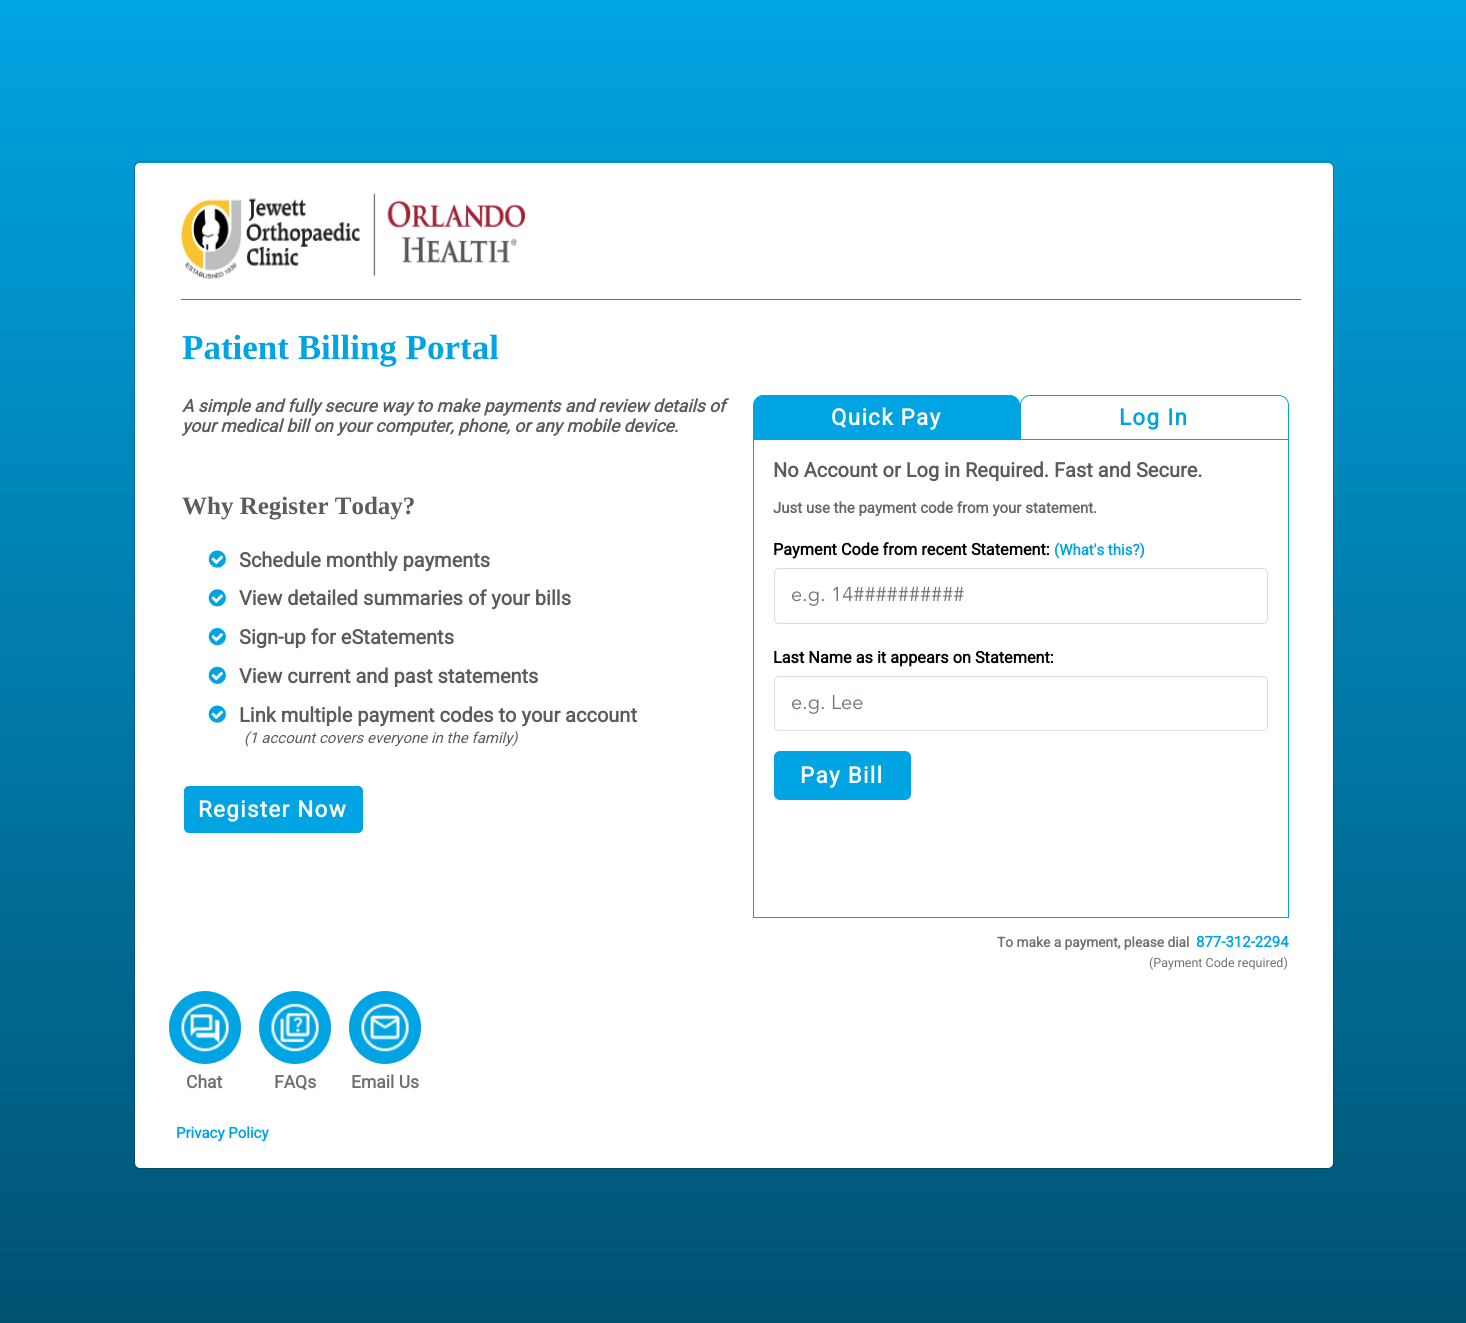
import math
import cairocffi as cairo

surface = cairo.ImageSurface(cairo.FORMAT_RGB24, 1466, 1323)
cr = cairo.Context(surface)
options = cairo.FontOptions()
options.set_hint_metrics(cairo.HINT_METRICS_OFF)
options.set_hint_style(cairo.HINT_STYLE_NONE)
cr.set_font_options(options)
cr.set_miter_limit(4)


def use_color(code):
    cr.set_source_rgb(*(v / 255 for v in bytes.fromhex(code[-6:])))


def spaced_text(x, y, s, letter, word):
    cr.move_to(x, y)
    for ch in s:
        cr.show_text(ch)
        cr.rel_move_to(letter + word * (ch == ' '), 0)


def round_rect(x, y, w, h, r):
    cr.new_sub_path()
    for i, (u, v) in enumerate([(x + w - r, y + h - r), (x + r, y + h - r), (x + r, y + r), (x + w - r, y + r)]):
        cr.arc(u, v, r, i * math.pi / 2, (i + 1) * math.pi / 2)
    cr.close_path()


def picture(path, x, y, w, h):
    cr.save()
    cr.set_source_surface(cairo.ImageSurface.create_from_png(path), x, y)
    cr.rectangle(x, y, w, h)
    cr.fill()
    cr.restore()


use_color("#ffffff")
cr.paint()
gradient = cairo.LinearGradient(733, 0, 733, 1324)
gradient.add_color_stop_rgba(0, 0.004, 0.643, 0.89, 1)
gradient.add_color_stop_rgba(1, 0.004, 0.322, 0.447, 1)
cr.set_source(gradient)
cr.rectangle(0, 0, 1466, 1323)
cr.fill()
use_color("#ffffff")
round_rect(135, 163, 1198, 1005, 5)
cr.fill()
round_rect(134.5, 161.5, 1199, 1007, 5.5)
cr.set_source_rgba(0, 0, 0, 0.2)
cr.set_line_width(1)
cr.stroke()
picture("img1.png", 181, 193, 344, 86)
use_color("#707070")
cr.rectangle(181, 299, 1120, 1)
cr.fill()
cr.select_font_face("Liberation Serif", cairo.FONT_SLANT_NORMAL, cairo.FONT_WEIGHT_BOLD)
cr.set_font_size(35)
use_color("#01a4e3")
cr.move_to(182, 359)
cr.show_text("Patient Billing Portal")
cr.select_font_face("Roboto", cairo.FONT_SLANT_ITALIC, cairo.FONT_WEIGHT_BOLD)
cr.set_font_size(17.5)
use_color("#5f5b5b")
cr.move_to(182, 412)
cr.show_text("A simple and fully secure way to make payments and review details of")
cr.move_to(182, 432)
cr.show_text("your medical bill on your computer, phone, or any mobile device.")
cr.select_font_face("Liberation Serif", cairo.FONT_SLANT_NORMAL, cairo.FONT_WEIGHT_BOLD)
cr.set_font_size(25)
cr.move_to(182, 514)
cr.show_text("Why Register Today?")
picture("img2.png", 208, 550, 18, 18)
cr.select_font_face("Roboto", cairo.FONT_SLANT_NORMAL, cairo.FONT_WEIGHT_BOLD)
cr.set_font_size(20)
cr.move_to(239, 567)
cr.show_text("Schedule monthly payments")
picture("img3.png", 208, 589, 18, 18)
cr.move_to(239, 605)
cr.show_text("View detailed summaries of your bills")
picture("img4.png", 208, 628, 18, 18)
cr.move_to(239, 644)
cr.show_text("Sign-up for eStatements")
picture("img5.png", 208, 666, 18, 18)
cr.move_to(239, 683)
cr.show_text("View current and past statements")
picture("img2.png", 208, 705, 18, 18)
cr.move_to(239, 722)
cr.show_text("Link multiple payment codes to your account")
cr.select_font_face("Roboto", cairo.FONT_SLANT_ITALIC)
cr.set_font_size(15)
cr.move_to(244, 743)
cr.show_text("(1 account covers everyone in the family)")
use_color("#01a4e3")
round_rect(184, 786, 179, 47, 5)
cr.fill()
cr.select_font_face("Roboto", cairo.FONT_SLANT_NORMAL, cairo.FONT_WEIGHT_BOLD)
cr.set_font_size(22.5)
use_color("#ffffff")
spaced_text(198, 817, "Register Now", 1.25, 0)
cr.rectangle(753.5, 439.5, 535, 478)
use_color("#01a4e3")
cr.stroke()
cr.new_path()
cr.move_to(763, 395.5)
cr.line_to(1010, 395.5)
cr.curve_to(1015, 395.5, 1019.5, 400, 1019.5, 405)
cr.line_to(1019.5, 439.5)
cr.line_to(753.5, 439.5)
cr.line_to(753.5, 405)
cr.curve_to(753.5, 400, 758, 395.5, 763, 395.5)
cr.close_path()
cr.fill_preserve()
cr.stroke()
use_color("#ffffff")
spaced_text(831, 425, "Quick Pay", 1.25, 0)
cr.new_path()
cr.move_to(1030, 395.5)
cr.line_to(1279, 395.5)
cr.curve_to(1284, 395.5, 1288.5, 400, 1288.5, 405)
cr.line_to(1288.5, 439.5)
cr.line_to(1020.5, 439.5)
cr.line_to(1020.5, 405)
cr.curve_to(1020.5, 400, 1025, 395.5, 1030, 395.5)
cr.close_path()
use_color("#01a4e3")
cr.stroke()
spaced_text(1119, 425, "Log In", 1.25, 0)
cr.set_font_size(20)
use_color("#5f5b5b")
cr.move_to(773, 477)
cr.show_text("No Account or Log in Required. Fast and Secure.")
cr.set_font_size(15)
use_color("#676767")
cr.move_to(773, 513)
cr.show_text("Just use the payment code from your statement.")
cr.set_font_size(16.25)
use_color("#000000")
cr.move_to(773, 555)
cr.show_text("Payment Code from recent Statement:")
cr.set_font_size(15)
use_color("#01a4e3")
cr.move_to(1054, 555)
cr.show_text("(What's this?)")
round_rect(774.5, 568.5, 493, 55, 4.5)
use_color("#dddddd")
cr.stroke()
cr.select_font_face("Avenir")
cr.set_font_size(20)
use_color("#6c757d")
cr.move_to(791, 601)
cr.show_text("e.g. 14##########")
cr.select_font_face("Roboto", cairo.FONT_SLANT_NORMAL, cairo.FONT_WEIGHT_BOLD)
cr.set_font_size(16.25)
use_color("#000000")
cr.move_to(773, 663)
cr.show_text("Last Name as it appears on Statement:")
round_rect(774.5, 676.5, 493, 54, 4.5)
use_color("#dddddd")
cr.stroke()
cr.select_font_face("Avenir")
cr.set_font_size(20)
use_color("#6c757d")
cr.move_to(791, 709)
cr.show_text("e.g. Lee")
use_color("#01a4e3")
round_rect(774, 751, 137, 49, 6)
cr.fill()
cr.select_font_face("Roboto", cairo.FONT_SLANT_NORMAL, cairo.FONT_WEIGHT_BOLD)
cr.set_font_size(22.5)
use_color("#ffffff")
spaced_text(800, 783, "Pay Bill", 1.25, 0)
cr.set_font_size(13.75)
use_color("#707070")
cr.move_to(997, 947)
cr.show_text("To make a payment, please dial")
cr.set_font_size(15)
use_color("#01a4e3")
cr.move_to(1196, 947)
cr.show_text("877-312-2294")
cr.select_font_face("Roboto")
cr.set_font_size(12.5)
use_color("#707070")
cr.move_to(1149, 967)
cr.show_text("(Payment Code required)")
use_color("#01a4e3")
round_rect(169, 991, 72, 73, 36)
cr.fill()
picture("img6.png", 181, 1003, 48, 49)
cr.select_font_face("Roboto", cairo.FONT_SLANT_NORMAL, cairo.FONT_WEIGHT_BOLD)
cr.set_font_size(17.5)
use_color("#707070")
cr.move_to(186, 1088)
cr.show_text("Chat")
use_color("#01a4e3")
round_rect(259, 991, 72, 73, 36)
cr.fill()
picture("img7.png", 271, 1003, 48, 49)
use_color("#707070")
cr.move_to(274, 1088)
cr.show_text("FAQs")
use_color("#01a4e3")
round_rect(349, 991, 72, 73, 36)
cr.fill()
picture("img8.png", 361, 1003, 48, 49)
use_color("#707070")
cr.move_to(351, 1088)
cr.show_text("Email Us")
cr.set_font_size(15)
use_color("#01a4e3")
cr.move_to(176, 1138)
cr.show_text("Privacy Policy")
surface.write_to_png("result.png")
